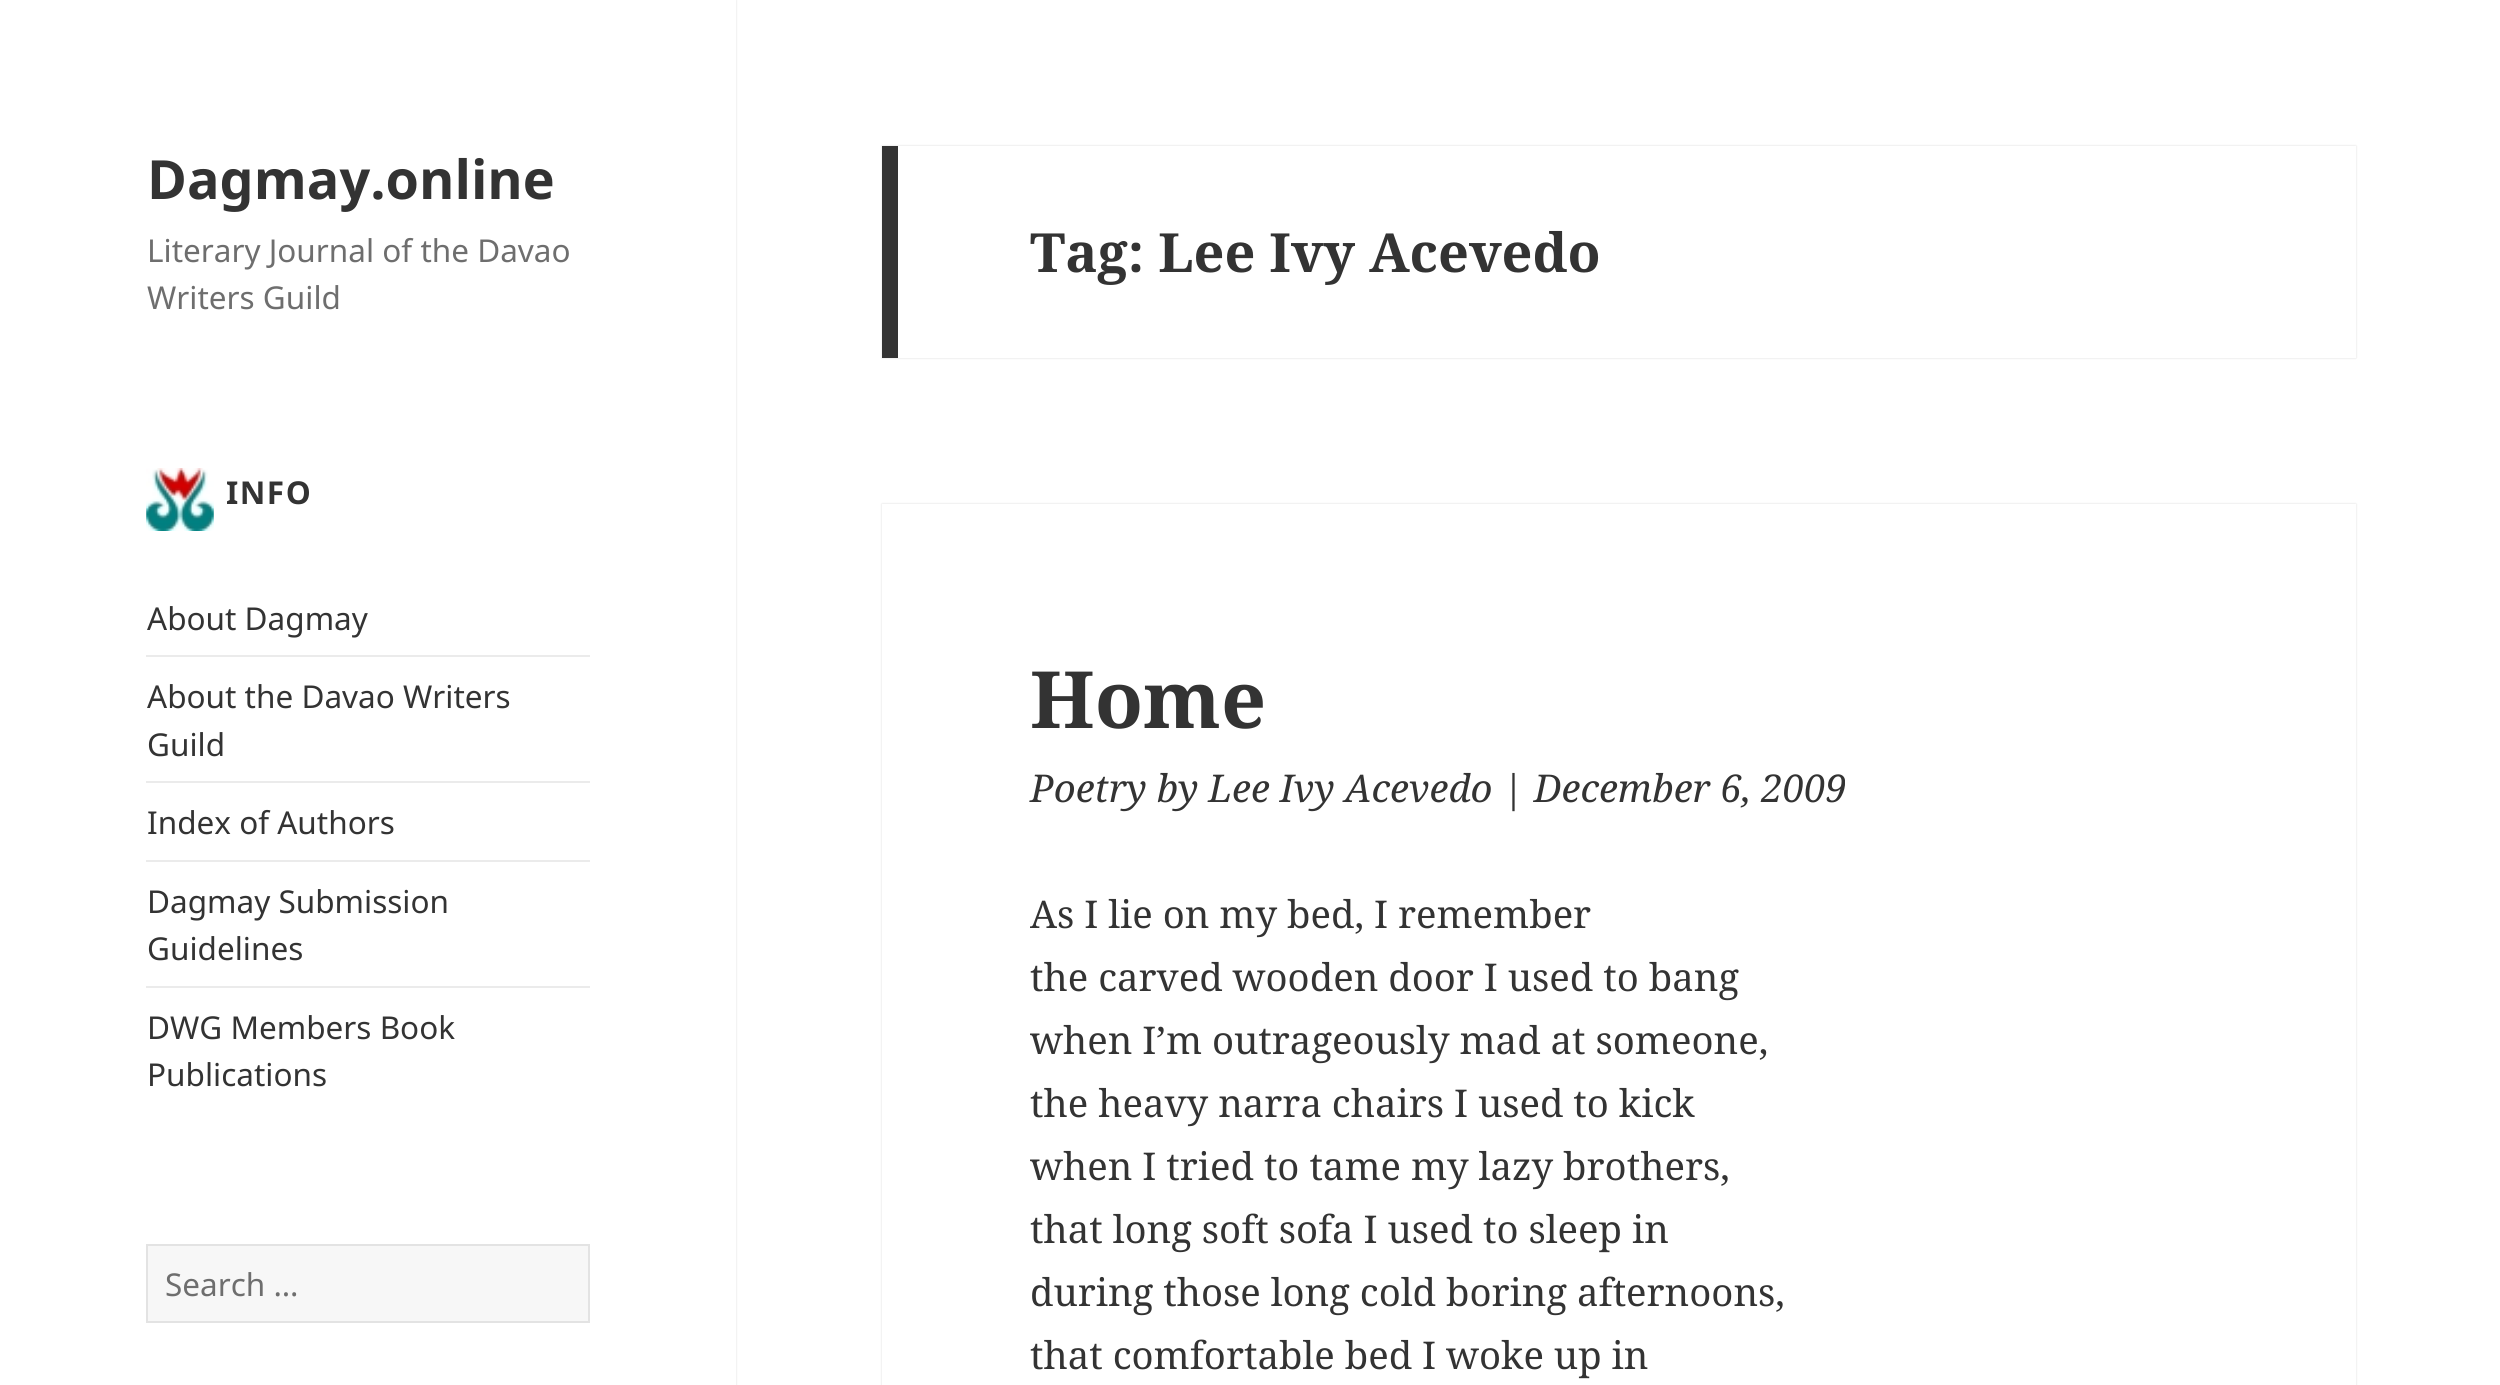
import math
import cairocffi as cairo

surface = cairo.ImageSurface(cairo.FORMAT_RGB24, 2500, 1385)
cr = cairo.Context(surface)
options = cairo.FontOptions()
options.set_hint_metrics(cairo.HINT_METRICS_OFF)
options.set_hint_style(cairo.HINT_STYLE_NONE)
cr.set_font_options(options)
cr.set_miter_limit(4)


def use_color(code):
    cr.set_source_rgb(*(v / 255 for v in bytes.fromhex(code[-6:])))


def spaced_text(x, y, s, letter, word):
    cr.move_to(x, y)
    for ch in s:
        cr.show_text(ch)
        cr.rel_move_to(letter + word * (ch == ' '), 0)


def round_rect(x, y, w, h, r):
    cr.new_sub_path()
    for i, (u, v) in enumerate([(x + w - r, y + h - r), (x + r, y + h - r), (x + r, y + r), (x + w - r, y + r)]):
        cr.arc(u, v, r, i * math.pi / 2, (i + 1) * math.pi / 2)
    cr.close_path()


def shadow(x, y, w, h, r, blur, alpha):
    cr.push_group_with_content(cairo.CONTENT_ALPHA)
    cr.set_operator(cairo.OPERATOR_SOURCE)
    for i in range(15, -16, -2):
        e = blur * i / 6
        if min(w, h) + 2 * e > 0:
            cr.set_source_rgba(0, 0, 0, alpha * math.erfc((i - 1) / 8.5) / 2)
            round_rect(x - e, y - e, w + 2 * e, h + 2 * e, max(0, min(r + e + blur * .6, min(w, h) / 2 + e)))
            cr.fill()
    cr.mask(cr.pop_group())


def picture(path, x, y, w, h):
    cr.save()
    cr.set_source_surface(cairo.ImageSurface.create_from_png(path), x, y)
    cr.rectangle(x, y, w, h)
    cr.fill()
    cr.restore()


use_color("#ffffff")
cr.paint()
use_color("#000000")
shadow(0, 0, 736, 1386, 0, 1, 0.15)
use_color("#ffffff")
cr.rectangle(0, 0, 736, 1385)
cr.fill()
cr.select_font_face("Noto Sans", cairo.FONT_SLANT_NORMAL, cairo.FONT_WEIGHT_BOLD)
cr.set_font_size(54)
use_color("#333333")
cr.move_to(147, 199)
cr.show_text("Dagmay.online")
cr.select_font_face("Noto Sans")
cr.set_font_size(31.5)
use_color("#6e6e6e")
cr.move_to(147, 262)
cr.show_text("Literary Journal of the Davao")
cr.move_to(147, 309)
cr.show_text("Writers Guild")
picture("img1.png", 146, 468, 68, 63)
cr.select_font_face("Noto Sans", cairo.FONT_SLANT_NORMAL, cairo.FONT_WEIGHT_BOLD)
use_color("#333333")
spaced_text(226, 504, "INFO", 1.5, 0)
cr.select_font_face("Noto Sans")
cr.move_to(147, 630)
cr.show_text("About Dagmay")
use_color("#ebebeb")
cr.rectangle(146, 655, 444, 2)
cr.fill()
use_color("#333333")
cr.move_to(147, 708)
cr.show_text("About the Davao Writers")
cr.move_to(147, 756)
cr.show_text("Guild")
use_color("#ebebeb")
cr.rectangle(146, 781, 444, 2)
cr.fill()
use_color("#333333")
cr.move_to(147, 834)
cr.show_text("Index of Authors")
use_color("#ebebeb")
cr.rectangle(146, 860, 444, 2)
cr.fill()
use_color("#333333")
cr.move_to(147, 913)
cr.show_text("Dagmay Submission")
cr.move_to(147, 960)
cr.show_text("Guidelines")
use_color("#ebebeb")
cr.rectangle(146, 986, 444, 2)
cr.fill()
use_color("#333333")
cr.move_to(147, 1039)
cr.show_text("DWG Members Book")
cr.move_to(147, 1086)
cr.show_text("Publications")
use_color("#f7f7f7")
cr.rectangle(147, 1245, 442, 77)
cr.fill_preserve()
use_color("#e3e3e3")
cr.stroke()
use_color("#6e6e6e")
cr.move_to(165, 1296)
cr.show_text("Search …")
use_color("#000000")
shadow(882, 146, 1474, 212, 0, 1, 0.15)
use_color("#ffffff")
cr.rectangle(898, 146, 1458, 212)
cr.fill()
use_color("#333333")
cr.rectangle(882, 146, 16, 212)
cr.fill()
cr.select_font_face("Noto Serif", cairo.FONT_SLANT_NORMAL, cairo.FONT_WEIGHT_BOLD)
cr.set_font_size(54)
cr.move_to(1030, 272)
cr.show_text("Tag: Lee Ivy Acevedo")
use_color("#000000")
shadow(882, 504, 1474, 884, 0, 1, 0.15)
use_color("#ffffff")
cr.rectangle(882, 504, 1474, 881)
cr.fill()
cr.set_font_size(79)
use_color("#333333")
cr.move_to(1030, 728)
cr.show_text("Home")
cr.select_font_face("Noto Serif", cairo.FONT_SLANT_ITALIC)
cr.set_font_size(38.25)
cr.move_to(1030, 802)
cr.show_text("Poetry by Lee Ivy Acevedo | December 6, 2009")
cr.select_font_face("Noto Serif")
cr.move_to(1030, 928)
cr.show_text("As I lie on my bed, I remember")
cr.move_to(1030, 991)
cr.show_text("the carved wooden door I used to bang")
cr.move_to(1030, 1054)
cr.show_text("when I’m outrageously mad at someone,")
cr.move_to(1030, 1117)
cr.show_text("the heavy narra chairs I used to kick")
cr.move_to(1030, 1180)
cr.show_text("when I tried to tame my lazy brothers,")
cr.move_to(1030, 1243)
cr.show_text("that long soft sofa I used to sleep in")
cr.move_to(1030, 1306)
cr.show_text("during those long cold boring afternoons,")
cr.move_to(1030, 1369)
cr.show_text("that comfortable bed I woke up in")
surface.write_to_png("result.png")
